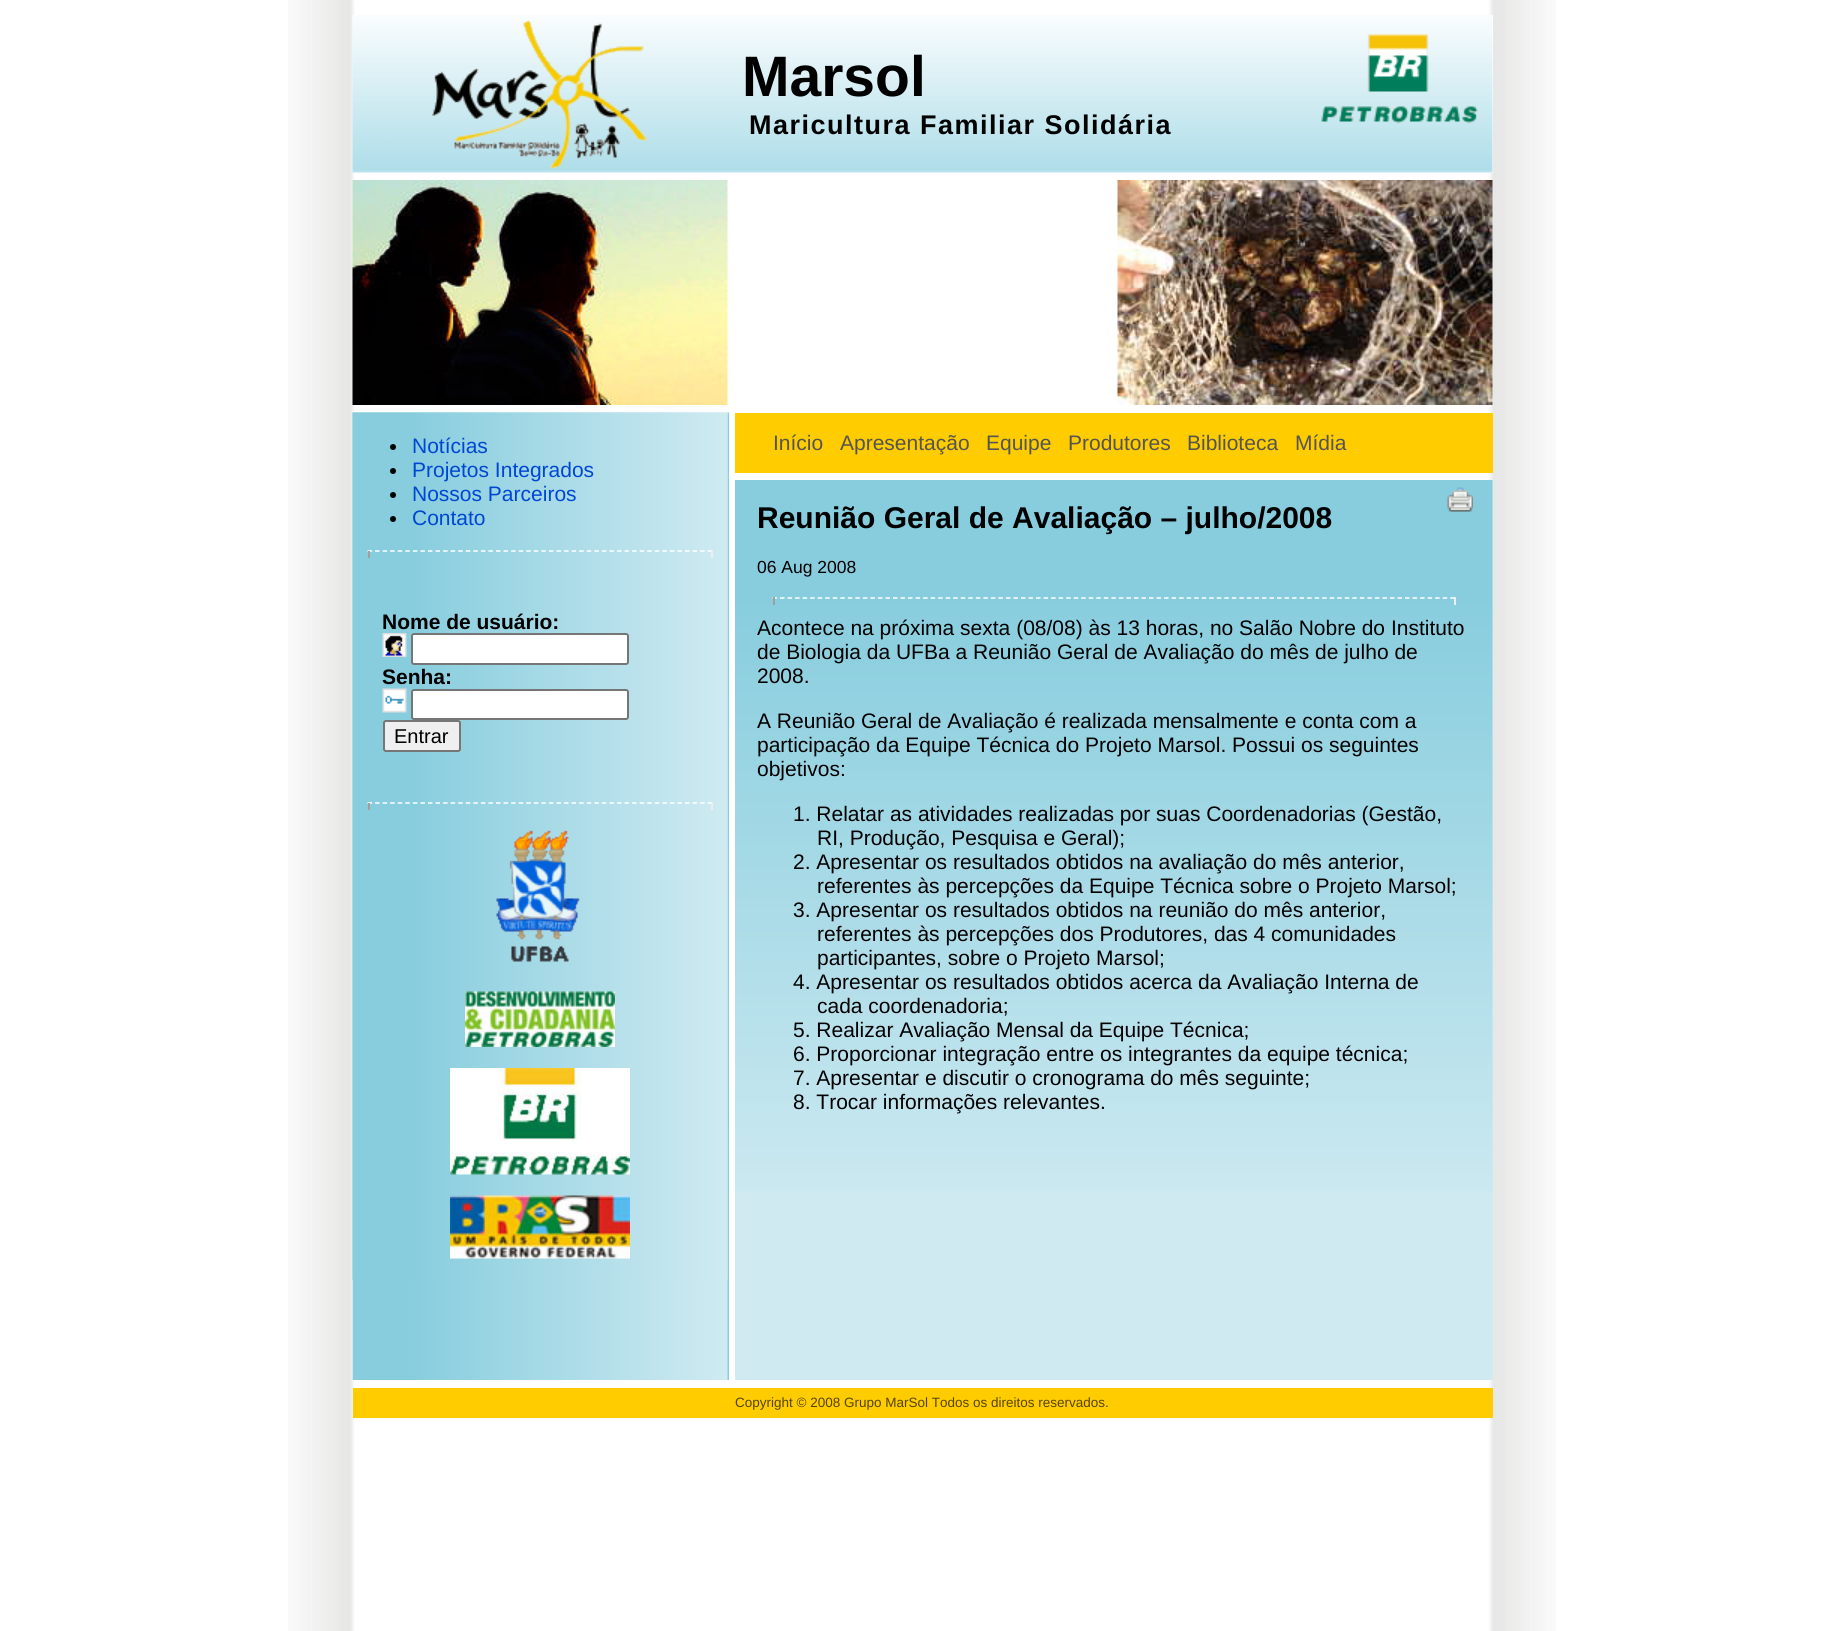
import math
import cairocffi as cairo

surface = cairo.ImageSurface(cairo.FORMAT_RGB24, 1843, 1631)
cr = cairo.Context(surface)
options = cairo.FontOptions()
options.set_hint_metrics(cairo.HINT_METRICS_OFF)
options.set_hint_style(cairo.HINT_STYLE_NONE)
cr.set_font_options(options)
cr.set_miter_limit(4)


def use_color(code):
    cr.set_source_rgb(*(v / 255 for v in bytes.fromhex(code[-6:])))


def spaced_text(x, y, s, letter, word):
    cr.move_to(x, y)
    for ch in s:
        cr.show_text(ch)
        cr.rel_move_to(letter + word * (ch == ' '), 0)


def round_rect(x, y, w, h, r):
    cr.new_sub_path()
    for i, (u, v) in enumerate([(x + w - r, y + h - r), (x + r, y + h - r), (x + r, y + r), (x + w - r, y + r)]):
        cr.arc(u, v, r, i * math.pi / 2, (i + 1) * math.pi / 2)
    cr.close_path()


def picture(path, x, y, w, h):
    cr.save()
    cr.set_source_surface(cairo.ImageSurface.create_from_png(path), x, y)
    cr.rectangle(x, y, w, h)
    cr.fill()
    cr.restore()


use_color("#ffffff")
cr.paint()
picture("img1.png", 288, 0, 1268, 1631)
use_color("#ffffff")
cr.rectangle(353, 15, 1140, 158)
cr.fill()
picture("img3.png", 352, 15, 1141, 158)
picture("img2.png", 432, 20, 215, 149)
cr.select_font_face("Liberation Sans", cairo.FONT_SLANT_NORMAL, cairo.FONT_WEIGHT_BOLD)
cr.set_font_size(57)
use_color("#000000")
cr.move_to(742, 96)
cr.show_text("Marsol")
cr.set_font_size(27)
spaced_text(749, 134, "Maricultura Familiar Solidária", 1.5, 0)
picture("img4.png", 1321, 34, 157, 90)
picture("img5.png", 352, 180, 376, 225)
picture("img6.png", 1117, 180, 376, 225)
picture("img7.png", 352, 412, 377, 968)
picture("img8.png", 352, 412, 376, 868)
cr.arc(393, 447, 3, 0, 2 * math.pi)
cr.fill()
cr.select_font_face("Liberation Sans")
cr.set_font_size(21)
use_color("#0046d4")
cr.move_to(412, 453)
cr.show_text("Notícias")
use_color("#000000")
cr.new_path()
cr.arc(393, 471, 3, 0, 2 * math.pi)
cr.fill()
use_color("#0046d4")
cr.move_to(412, 477)
cr.show_text("Projetos Integrados")
use_color("#000000")
cr.new_path()
cr.arc(393, 495, 3, 0, 2 * math.pi)
cr.fill()
use_color("#0046d4")
cr.move_to(412, 501)
cr.show_text("Nossos Parceiros")
use_color("#000000")
cr.new_path()
cr.arc(393, 519, 3, 0, 2 * math.pi)
cr.fill()
use_color("#0046d4")
cr.move_to(412, 525)
cr.show_text("Contato")
cr.new_path()
cr.move_to(367.5, 551)
cr.line_to(712.5, 551)
use_color("#ffffff")
cr.set_line_width(1.5)
cr.set_dash([4.5, 3.06])
cr.stroke()
use_color("#eeeeee")
cr.rectangle(711, 551, 2, 7)
cr.fill()
use_color("#9f9f9f")
cr.rectangle(368, 551, 2, 7)
cr.fill()
cr.select_font_face("Liberation Sans", cairo.FONT_SLANT_NORMAL, cairo.FONT_WEIGHT_BOLD)
use_color("#000000")
cr.move_to(382, 629)
cr.show_text("Nome de usuário:")
picture("img9.png", 382, 633, 25, 24)
use_color("#ffffff")
round_rect(412, 634, 216, 30, 2)
cr.fill_preserve()
use_color("#767676")
cr.set_line_width(2)
cr.set_dash([])
cr.stroke()
use_color("#000000")
cr.move_to(382, 684)
cr.show_text("Senha:")
picture("img10.png", 382, 688, 25, 25)
use_color("#ffffff")
round_rect(412, 690, 216, 29, 2)
cr.fill_preserve()
use_color("#767676")
cr.stroke()
use_color("#efefef")
round_rect(384, 721, 76, 30, 2)
cr.fill_preserve()
use_color("#767676")
cr.stroke()
cr.select_font_face("Liberation Sans")
cr.set_font_size(20)
use_color("#000000")
cr.move_to(394, 743)
cr.show_text("Entrar")
cr.new_path()
cr.move_to(367.5, 803)
cr.line_to(712.5, 803)
use_color("#ffffff")
cr.set_line_width(1.5)
cr.set_dash([4.5, 3.06])
cr.stroke()
use_color("#eeeeee")
cr.rectangle(711, 803, 2, 7)
cr.fill()
use_color("#9f9f9f")
cr.rectangle(368, 803, 2, 7)
cr.fill()
picture("img11.png", 496, 830, 84, 132)
picture("img12.png", 465, 991, 150, 56)
picture("img13.png", 450, 1068, 180, 107)
picture("img14.png", 450, 1195, 180, 64)
use_color("#ffcc00")
cr.rectangle(735, 413, 758, 60)
cr.fill()
cr.set_font_size(21)
use_color("#545454")
cr.move_to(773, 450)
cr.show_text("Início")
cr.move_to(840, 450)
cr.show_text("Apresentação")
cr.move_to(986, 450)
cr.show_text("Equipe")
cr.move_to(1068, 450)
cr.show_text("Produtores")
cr.move_to(1187, 450)
cr.show_text("Biblioteca")
cr.move_to(1295, 450)
cr.show_text("Mídia")
use_color("#cfeaf1")
cr.rectangle(735, 480, 758, 900)
cr.fill()
picture("img15.png", 735, 480, 758, 712)
picture("img16.png", 1447, 487, 26, 25)
cr.select_font_face("Liberation Sans", cairo.FONT_SLANT_NORMAL, cairo.FONT_WEIGHT_BOLD)
cr.set_font_size(30)
use_color("#000000")
cr.move_to(757, 528)
cr.show_text("Reunião Geral de Avaliação – julho/2008")
cr.select_font_face("Liberation Sans")
cr.set_font_size(17.5)
cr.move_to(757, 573)
cr.show_text("06 Aug 2008")
cr.new_path()
cr.move_to(772.5, 598)
cr.line_to(1455, 598)
use_color("#ffffff")
cr.set_dash([4.5, 3.03])
cr.stroke()
use_color("#eeeeee")
cr.rectangle(1454, 597, 2, 8)
cr.fill()
use_color("#9f9f9f")
cr.rectangle(773, 597, 2, 8)
cr.fill()
cr.set_font_size(21)
use_color("#000000")
cr.move_to(757, 635)
cr.show_text("Acontece na próxima sexta (08/08) às 13 horas, no Salão Nobre do Instituto")
cr.move_to(757, 659)
cr.show_text("de Biologia da UFBa a Reunião Geral de Avaliação do mês de julho de")
cr.move_to(757, 683)
cr.show_text("2008.")
cr.move_to(757, 728)
cr.show_text("A Reunião Geral de Avaliação é realizada mensalmente e conta com a")
cr.move_to(757, 752)
cr.show_text("participação da Equipe Técnica do Projeto Marsol. Possui os seguintes")
cr.move_to(757, 776)
cr.show_text("objetivos:")
cr.move_to(793, 821)
cr.show_text("1. Relatar as atividades realizadas por suas Coordenadorias (Gestão,")
cr.move_to(817, 845)
cr.show_text("RI, Produção, Pesquisa e Geral);")
cr.move_to(793, 869)
cr.show_text("2. Apresentar os resultados obtidos na avaliação do mês anterior,")
cr.move_to(817, 893)
cr.show_text("referentes às percepções da Equipe Técnica sobre o Projeto Marsol;")
cr.move_to(793, 917)
cr.show_text("3. Apresentar os resultados obtidos na reunião do mês anterior,")
cr.move_to(817, 941)
cr.show_text("referentes às percepções dos Produtores, das 4 comunidades")
cr.move_to(817, 965)
cr.show_text("participantes, sobre o Projeto Marsol;")
cr.move_to(793, 989)
cr.show_text("4. Apresentar os resultados obtidos acerca da Avaliação Interna de")
cr.move_to(817, 1013)
cr.show_text("cada coordenadoria;")
cr.move_to(793, 1037)
cr.show_text("5. Realizar Avaliação Mensal da Equipe Técnica;")
cr.move_to(793, 1061)
cr.show_text("6. Proporcionar integração entre os integrantes da equipe técnica;")
cr.move_to(793, 1085)
cr.show_text("7. Apresentar e discutir o cronograma do mês seguinte;")
cr.move_to(793, 1109)
cr.show_text("8. Trocar informações relevantes.")
use_color("#ffcc00")
cr.rectangle(353, 1388, 1140, 30)
cr.fill()
cr.set_font_size(13.5)
use_color("#554400")
cr.move_to(735, 1407)
cr.show_text("Copyright © 2008 Grupo MarSol Todos os direitos reservados.")
surface.write_to_png("result.png")
